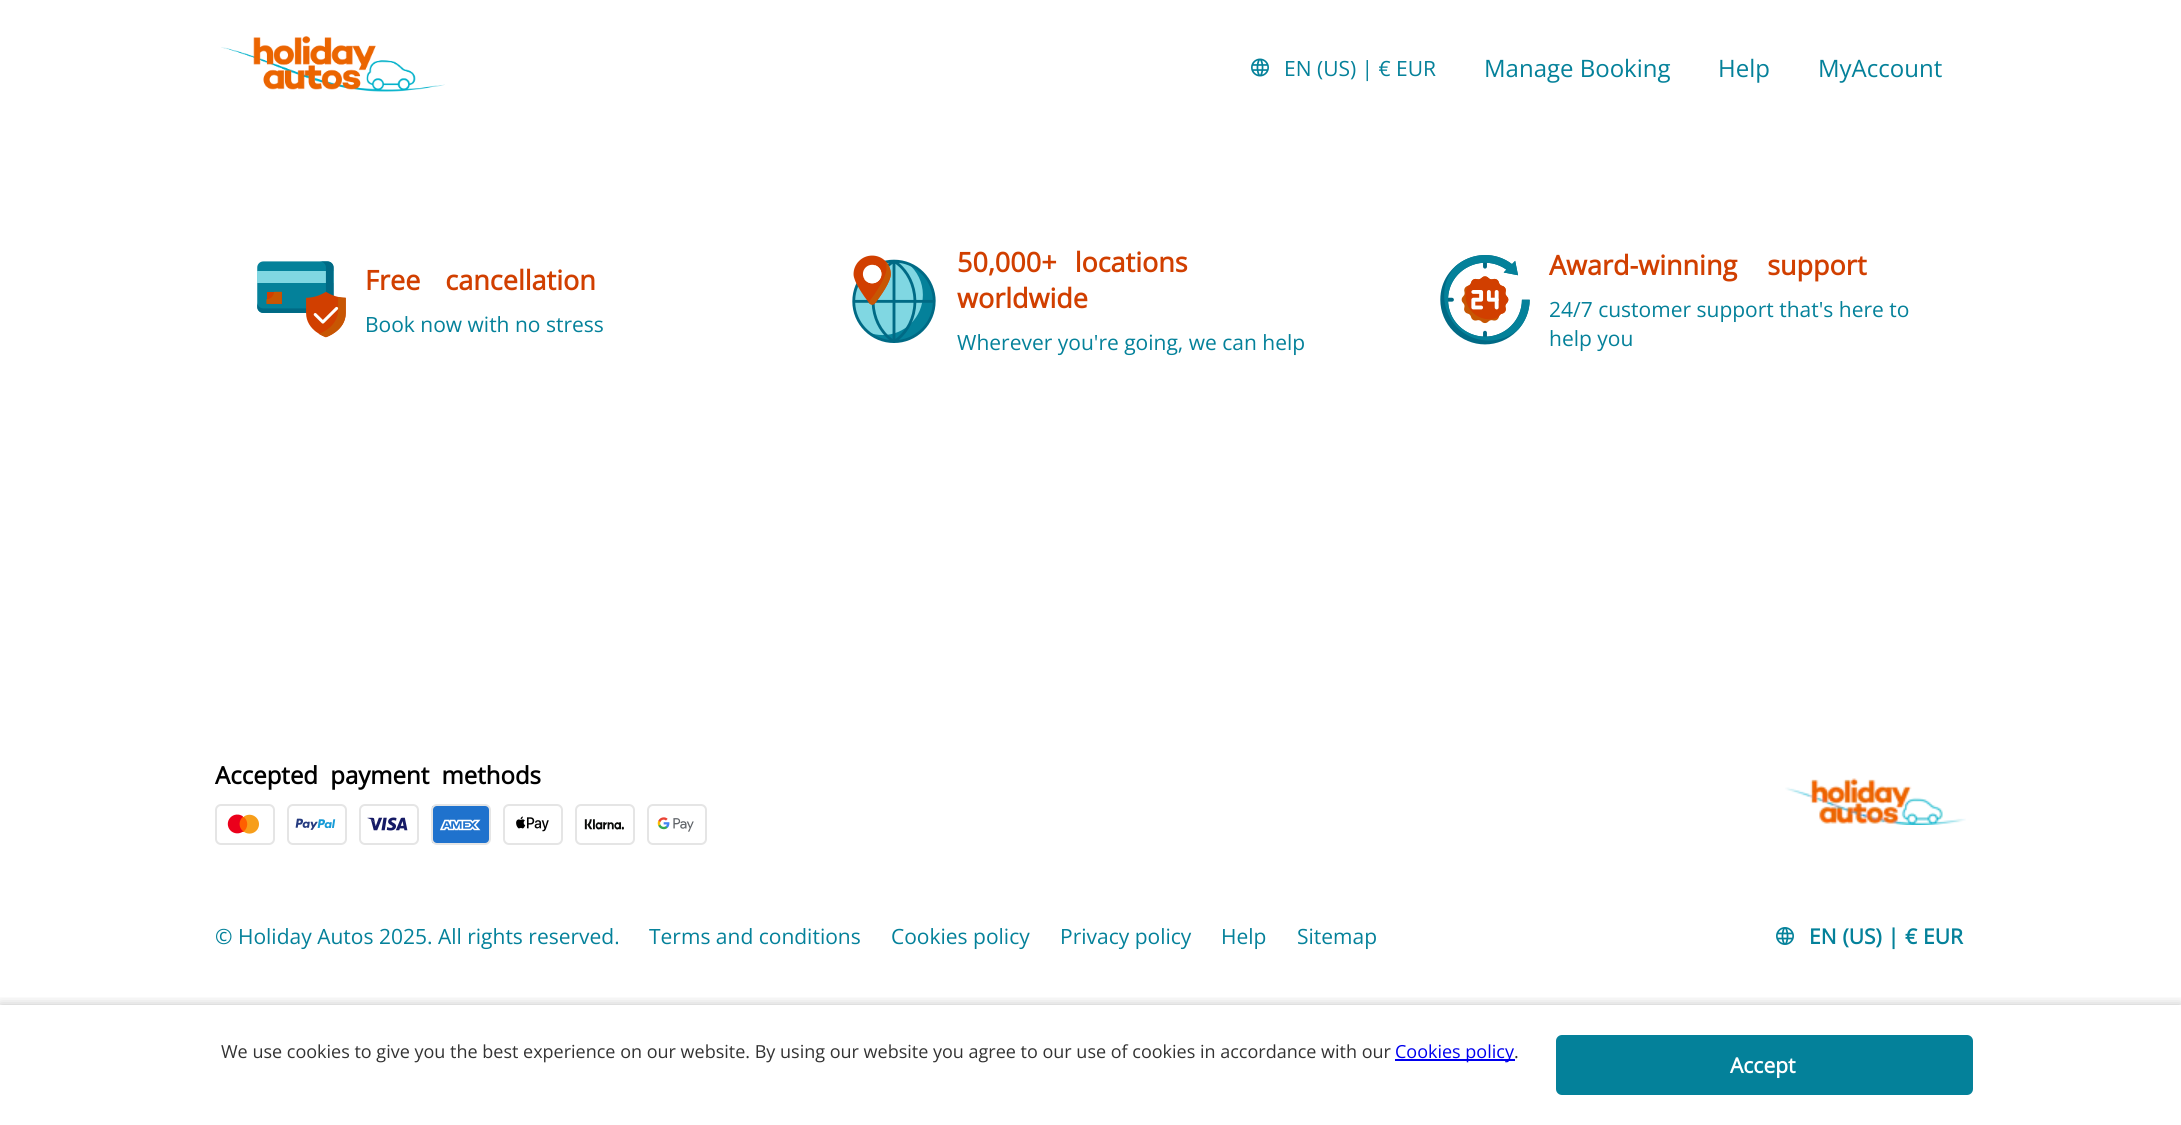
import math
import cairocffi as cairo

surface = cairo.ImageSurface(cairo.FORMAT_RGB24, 2181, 1125)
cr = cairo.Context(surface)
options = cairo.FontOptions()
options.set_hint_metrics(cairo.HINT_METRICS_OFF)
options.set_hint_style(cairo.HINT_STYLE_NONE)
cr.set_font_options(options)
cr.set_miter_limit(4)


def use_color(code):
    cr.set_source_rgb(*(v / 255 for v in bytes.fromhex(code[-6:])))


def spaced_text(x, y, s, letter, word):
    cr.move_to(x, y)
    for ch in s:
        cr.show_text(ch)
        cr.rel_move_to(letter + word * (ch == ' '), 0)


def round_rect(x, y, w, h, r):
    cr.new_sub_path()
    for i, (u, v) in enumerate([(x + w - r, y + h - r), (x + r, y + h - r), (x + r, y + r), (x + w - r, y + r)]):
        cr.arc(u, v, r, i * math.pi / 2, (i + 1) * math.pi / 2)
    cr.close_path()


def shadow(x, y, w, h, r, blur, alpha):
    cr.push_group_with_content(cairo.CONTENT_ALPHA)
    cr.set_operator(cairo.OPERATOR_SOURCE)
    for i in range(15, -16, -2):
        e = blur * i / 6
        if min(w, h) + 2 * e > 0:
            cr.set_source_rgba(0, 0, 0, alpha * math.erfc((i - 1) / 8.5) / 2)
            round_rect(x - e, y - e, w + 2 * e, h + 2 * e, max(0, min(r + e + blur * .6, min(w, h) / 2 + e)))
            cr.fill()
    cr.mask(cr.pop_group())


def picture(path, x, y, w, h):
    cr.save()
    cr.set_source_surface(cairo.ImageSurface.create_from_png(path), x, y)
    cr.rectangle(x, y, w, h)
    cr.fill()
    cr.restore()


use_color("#ffffff")
cr.paint()
picture("img1.png", 221, 36, 224, 56)
picture("img2.png", 1251, 58, 18, 19)
cr.select_font_face("Open Sans")
cr.set_font_size(21)
use_color("#04819a")
cr.move_to(1284, 76)
cr.show_text("EN (US) | € EUR")
cr.set_font_size(24)
cr.move_to(1484, 77)
cr.show_text("Manage Booking")
cr.move_to(1718, 77)
cr.show_text("Help")
cr.move_to(1818, 77)
cr.show_text("MyAccount")
picture("img3.png", 257, 261, 89, 77)
cr.select_font_face("Open Sans", cairo.FONT_SLANT_NORMAL, cairo.FONT_WEIGHT_BOLD)
cr.set_font_size(27)
use_color("#d13f00")
spaced_text(365, 290, "Free cancellation", 0, 18)
cr.select_font_face("Open Sans")
cr.set_font_size(21)
use_color("#04819a")
cr.move_to(365, 332)
cr.show_text("Book now with no stress")
picture("img4.png", 852, 255, 84, 88)
cr.select_font_face("Open Sans", cairo.FONT_SLANT_NORMAL, cairo.FONT_WEIGHT_BOLD)
cr.set_font_size(27)
use_color("#d13f00")
spaced_text(957, 272, "50,000+ locations", 0, 11)
cr.move_to(957, 308)
cr.show_text("worldwide")
cr.select_font_face("Open Sans")
cr.set_font_size(21)
use_color("#04819a")
cr.move_to(957, 350)
cr.show_text("Wherever you're going, we can help")
picture("img5.png", 1440, 255, 90, 90)
cr.select_font_face("Open Sans", cairo.FONT_SLANT_NORMAL, cairo.FONT_WEIGHT_BOLD)
cr.set_font_size(27)
use_color("#d13f00")
spaced_text(1549, 275, "Award-winning support", 0, 23)
cr.select_font_face("Open Sans")
cr.set_font_size(21)
use_color("#04819a")
cr.move_to(1549, 317)
cr.show_text("24/7 customer support that's here to")
cr.move_to(1549, 346)
cr.show_text("help you")
cr.select_font_face("Open Sans", cairo.FONT_SLANT_NORMAL, cairo.FONT_WEIGHT_BOLD)
cr.set_font_size(24)
use_color("#000000")
spaced_text(215, 784, "Accepted payment methods", 0, 6)
picture("img6.png", 227, 814, 32, 20)
round_rect(216, 805, 58, 39, 5)
use_color("#e5e5e5")
cr.stroke()
picture("img7.png", 295, 818, 41, 12)
round_rect(288, 805, 58, 39, 5)
cr.stroke()
picture("img8.png", 367, 817, 41, 14)
round_rect(360, 805, 58, 39, 5)
cr.stroke()
picture("img9.png", 432, 806, 57, 37)
round_rect(432, 805, 58, 39, 5)
cr.stroke()
picture("img10.png", 516, 816, 33, 16)
round_rect(504, 805, 58, 39, 5)
cr.stroke()
picture("img11.png", 584, 819, 40, 11)
round_rect(576, 805, 58, 39, 5)
cr.stroke()
picture("img12.png", 657, 817, 37, 15)
round_rect(648, 805, 58, 39, 5)
cr.stroke()
picture("img13.png", 1785, 778, 181, 47)
cr.select_font_face("Open Sans")
cr.set_font_size(21)
use_color("#04819a")
cr.move_to(215, 944)
cr.show_text("© Holiday Autos 2025. All rights reserved.")
cr.move_to(649, 944)
cr.show_text("Terms and conditions")
cr.move_to(891, 944)
cr.show_text("Cookies policy")
cr.move_to(1060, 944)
cr.show_text("Privacy policy")
cr.move_to(1221, 944)
cr.show_text("Help")
cr.move_to(1297, 944)
cr.show_text("Sitemap")
picture("img14.png", 1776, 927, 18, 18)
cr.select_font_face("Open Sans", cairo.FONT_SLANT_NORMAL, cairo.FONT_WEIGHT_BOLD)
spaced_text(1809, 944, "EN (US) | € EUR", 0, 0.5)
cr.save()
cr.rectangle(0, 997, 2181, 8)
cr.clip()
use_color("#000000")
shadow(0, 1005, 2181, 120, 0, 6, 0.25)
cr.restore()
cr.select_font_face("Open Sans")
cr.set_font_size(18)
use_color("#333333")
cr.move_to(221, 1058)
cr.show_text("We use cookies to give you the best experience on our website. By using our website you agree to our use of cookies in accordance with our")
use_color("#0000ee")
cr.rectangle(1395, 1059, 120, 2)
cr.fill()
cr.move_to(1395, 1058)
cr.show_text("Cookies policy")
use_color("#333333")
cr.move_to(1514, 1058)
cr.show_text(".")
use_color("#04819a")
round_rect(1556, 1035, 417, 60, 6)
cr.fill()
cr.select_font_face("Open Sans", cairo.FONT_SLANT_NORMAL, cairo.FONT_WEIGHT_BOLD)
cr.set_font_size(21)
use_color("#ffffff")
cr.move_to(1730, 1073)
cr.show_text("Accept")
surface.write_to_png("result.png")
